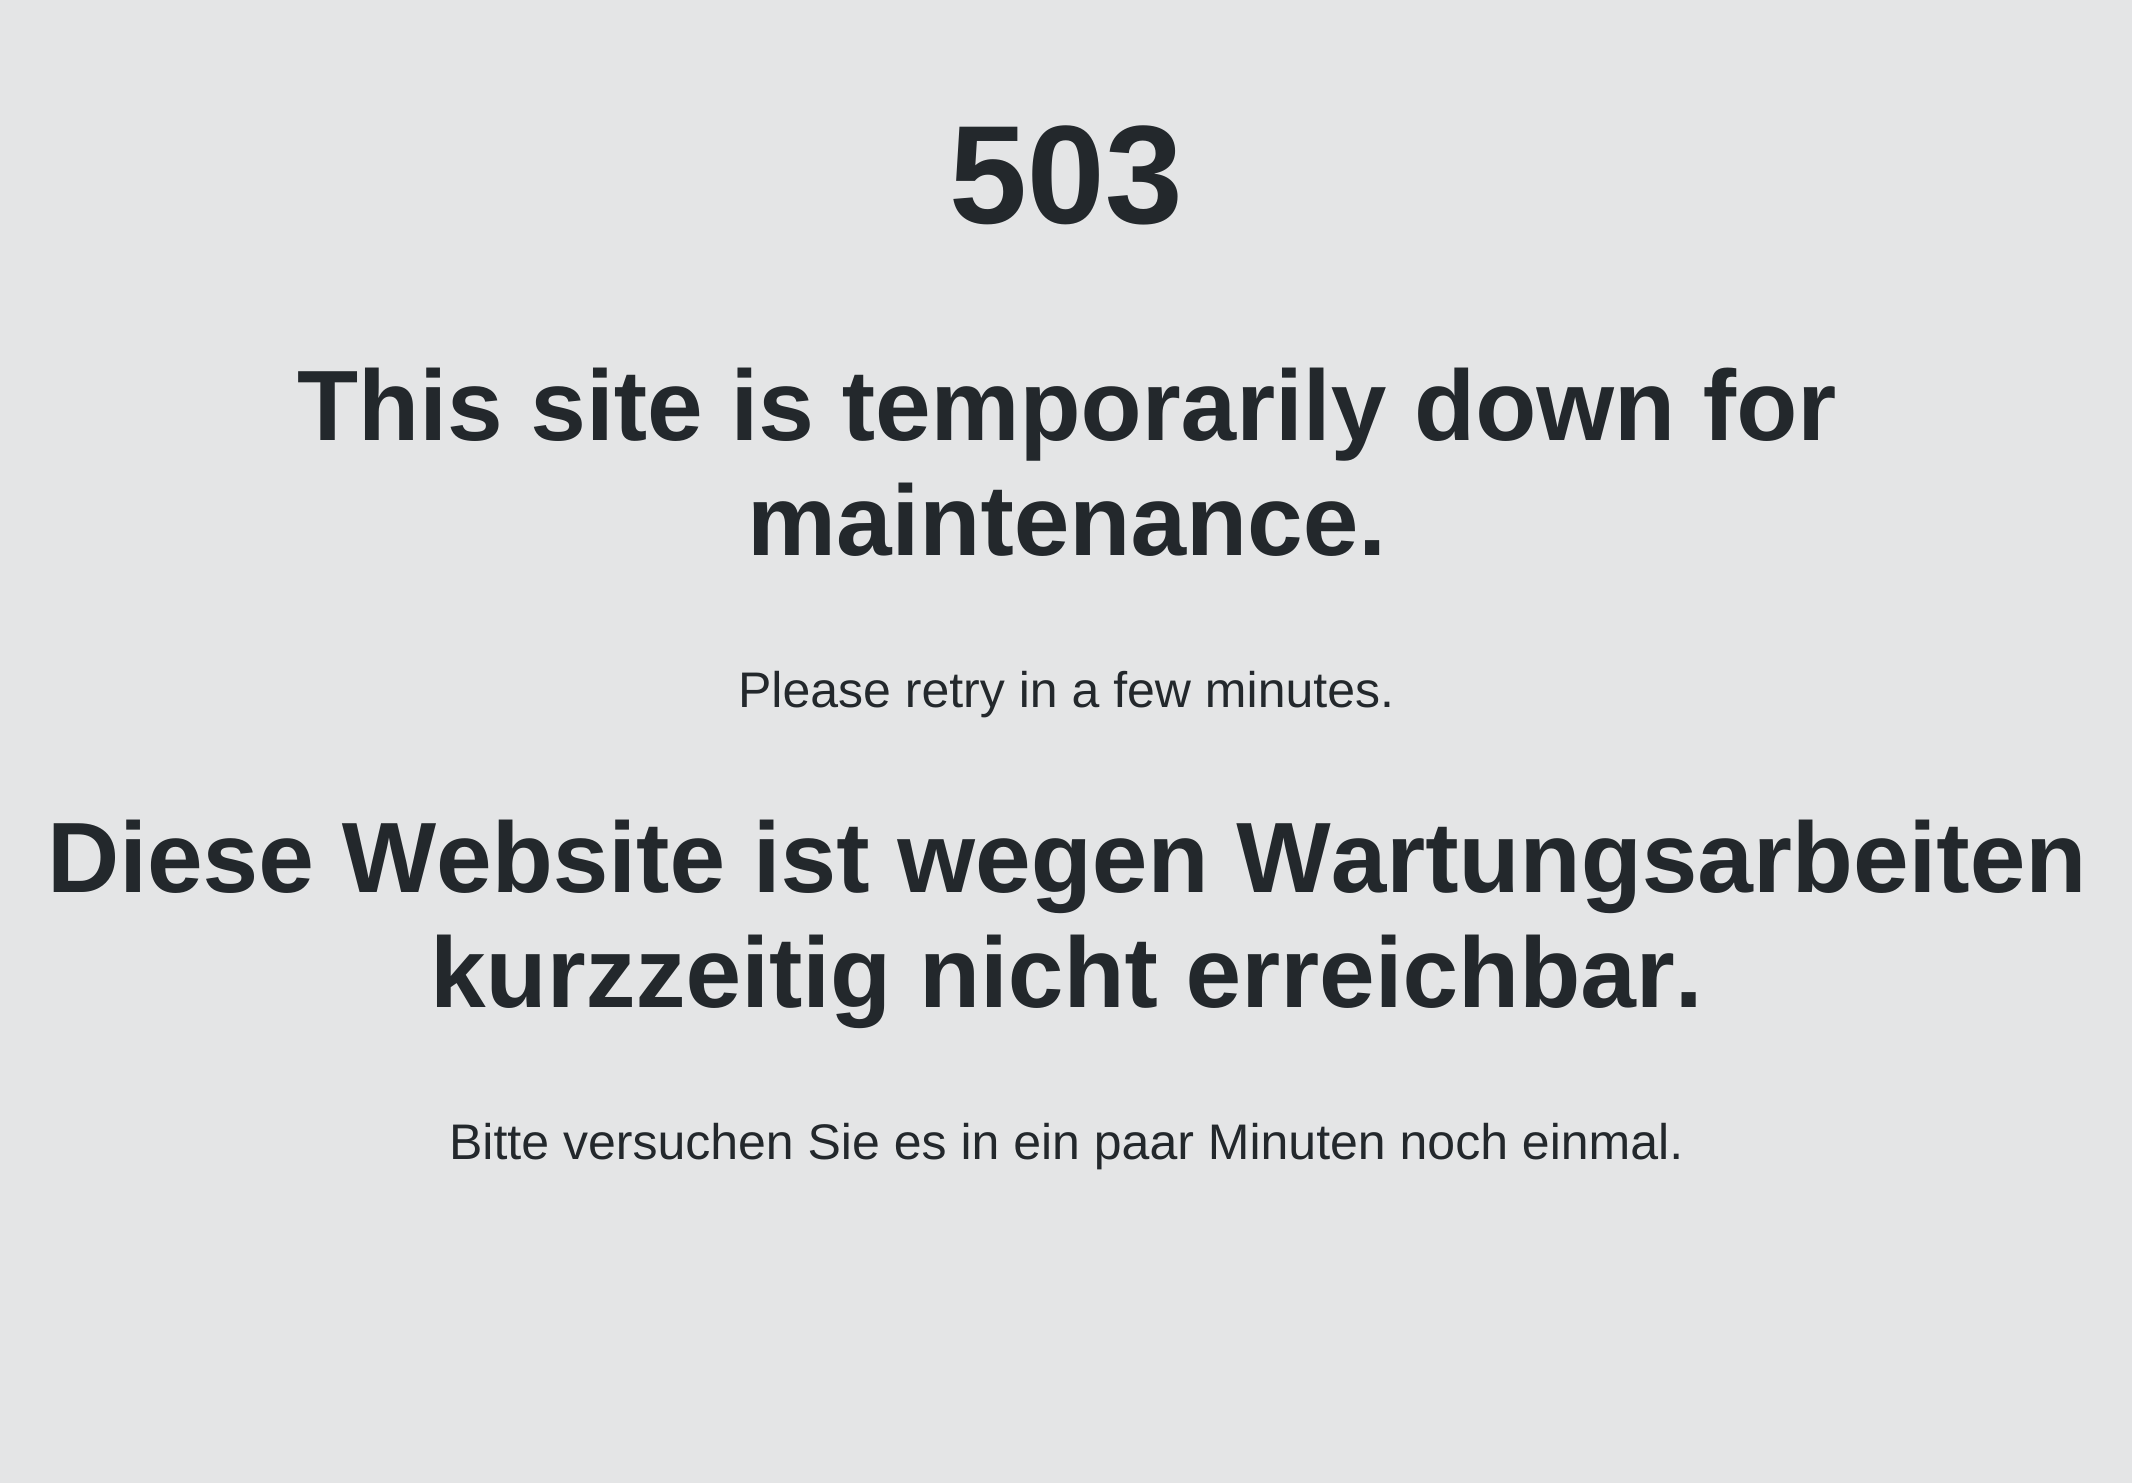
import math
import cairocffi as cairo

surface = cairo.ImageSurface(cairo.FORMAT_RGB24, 2132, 1483)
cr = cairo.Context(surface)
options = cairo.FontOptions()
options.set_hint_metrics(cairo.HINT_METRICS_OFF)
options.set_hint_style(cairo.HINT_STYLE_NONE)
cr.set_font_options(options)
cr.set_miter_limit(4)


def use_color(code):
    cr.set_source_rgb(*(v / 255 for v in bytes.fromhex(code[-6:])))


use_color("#e4e5e6")
cr.paint()
cr.select_font_face("Liberation Sans", cairo.FONT_SLANT_NORMAL, cairo.FONT_WEIGHT_BOLD)
cr.set_font_size(140)
use_color("#23282c")
cr.move_to(949, 223)
cr.show_text("503")
cr.set_font_size(100)
cr.move_to(297, 440)
cr.show_text("This site is temporarily down for")
cr.move_to(747, 555)
cr.show_text("maintenance.")
cr.select_font_face("Liberation Sans")
cr.set_font_size(50)
cr.move_to(738, 707)
cr.show_text("Please retry in a few minutes.")
cr.select_font_face("Liberation Sans", cairo.FONT_SLANT_NORMAL, cairo.FONT_WEIGHT_BOLD)
cr.set_font_size(100)
cr.move_to(47, 892)
cr.show_text("Diese Website ist wegen Wartungsarbeiten")
cr.move_to(430, 1007)
cr.show_text("kurzzeitig nicht erreichbar.")
cr.select_font_face("Liberation Sans")
cr.set_font_size(50)
cr.move_to(449, 1159)
cr.show_text("Bitte versuchen Sie es in ein paar Minuten noch einmal.")
surface.write_to_png("result.png")
